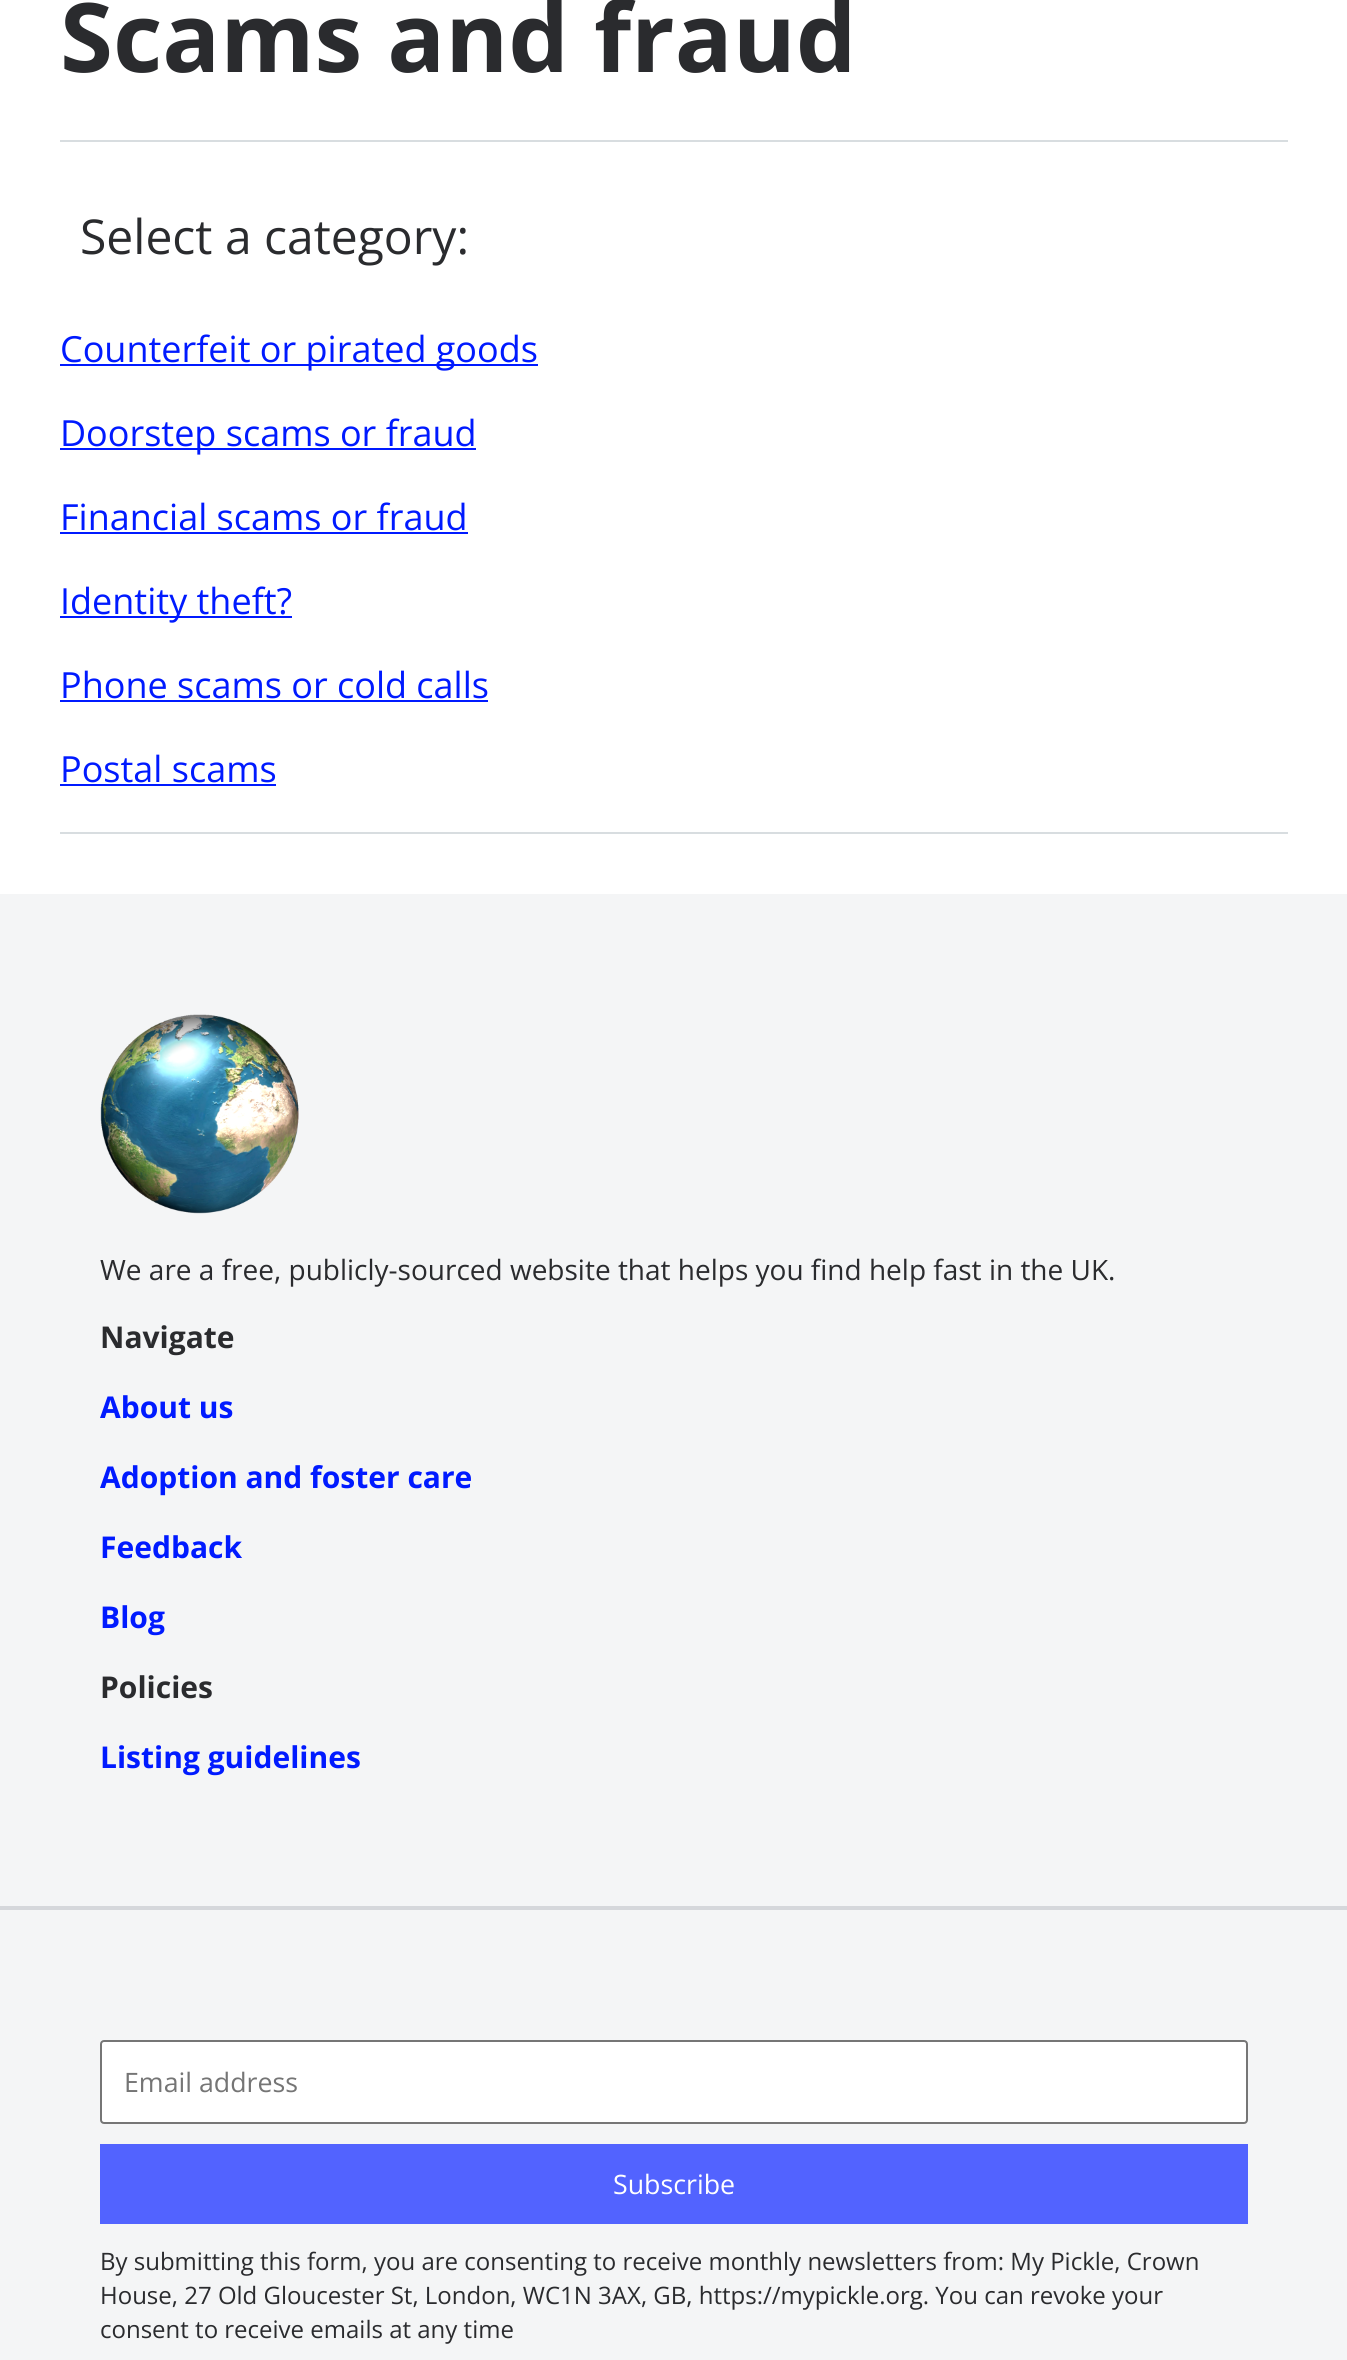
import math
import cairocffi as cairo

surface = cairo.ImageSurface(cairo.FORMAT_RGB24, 1347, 2360)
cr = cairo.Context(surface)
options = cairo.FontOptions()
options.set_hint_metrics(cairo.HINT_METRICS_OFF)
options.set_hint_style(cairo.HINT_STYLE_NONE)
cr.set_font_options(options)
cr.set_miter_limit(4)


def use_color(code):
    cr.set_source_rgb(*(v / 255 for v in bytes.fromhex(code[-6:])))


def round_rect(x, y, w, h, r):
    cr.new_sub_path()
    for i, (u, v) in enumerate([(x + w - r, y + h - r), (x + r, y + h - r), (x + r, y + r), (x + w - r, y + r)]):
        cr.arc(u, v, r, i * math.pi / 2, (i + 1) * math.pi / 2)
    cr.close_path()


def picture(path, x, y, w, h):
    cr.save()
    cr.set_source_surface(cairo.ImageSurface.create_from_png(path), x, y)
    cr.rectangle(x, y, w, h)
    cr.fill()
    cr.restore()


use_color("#ffffff")
cr.paint()
cr.select_font_face("Open Sans", cairo.FONT_SLANT_NORMAL, cairo.FONT_WEIGHT_BOLD)
cr.set_font_size(96)
use_color("#2a2b2e")
cr.move_to(60, 72)
cr.show_text("Scams and fraud")
use_color("#d8dde0")
cr.rectangle(60, 140, 1228, 2)
cr.fill()
cr.select_font_face("Open Sans")
cr.set_font_size(48)
use_color("#2a2b2e")
cr.move_to(80, 254)
cr.show_text("Select a category:")
use_color("#001aff")
cr.rectangle(60, 364, 478, 2)
cr.fill()
cr.set_font_size(36)
cr.move_to(60, 362)
cr.show_text("Counterfeit or pirated goods")
cr.rectangle(60, 448, 416, 2)
cr.fill()
cr.move_to(60, 446)
cr.show_text("Doorstep scams or fraud")
cr.move_to(60, 530)
cr.show_text("Financial scams or fraud")
cr.rectangle(60, 532, 408, 2)
cr.fill()
cr.rectangle(60, 616, 232, 2)
cr.fill()
cr.move_to(60, 614)
cr.show_text("Identity theft?")
cr.move_to(60, 698)
cr.show_text("Phone scams or cold calls")
cr.rectangle(60, 700, 428, 2)
cr.fill()
cr.move_to(60, 782)
cr.show_text("Postal scams")
cr.rectangle(60, 784, 216, 2)
cr.fill()
use_color("#d8dde0")
cr.rectangle(60, 832, 1228, 2)
cr.fill()
use_color("#f4f5f6")
cr.rectangle(0, 894, 1347, 1012)
cr.fill()
use_color("#d5d7db")
cr.rectangle(0, 1906, 1347, 4)
cr.fill()
picture("img1.png", 100, 1014, 199, 200)
cr.set_font_size(28)
use_color("#2a2b2e")
cr.move_to(100, 1280)
cr.show_text("We are a free, publicly-sourced website that helps you find help fast in the UK.")
cr.select_font_face("Open Sans", cairo.FONT_SLANT_NORMAL, cairo.FONT_WEIGHT_BOLD)
cr.set_font_size(30)
cr.move_to(100, 1348)
cr.show_text("Navigate")
use_color("#001aff")
cr.move_to(100, 1418)
cr.show_text("About us")
cr.move_to(100, 1488)
cr.show_text("Adoption and foster care")
cr.move_to(100, 1558)
cr.show_text("Feedback")
cr.move_to(100, 1628)
cr.show_text("Blog")
use_color("#2a2b2e")
cr.move_to(100, 1698)
cr.show_text("Policies")
use_color("#001aff")
cr.move_to(100, 1768)
cr.show_text("Listing guidelines")
use_color("#f4f5f6")
cr.rectangle(0, 1910, 1347, 450)
cr.fill()
use_color("#ffffff")
round_rect(101, 2041, 1146, 82, 3)
cr.fill_preserve()
use_color("#767676")
cr.stroke()
cr.select_font_face("Open Sans")
cr.set_font_size(26.75)
use_color("#757575")
cr.move_to(124, 2092)
cr.show_text("Email address")
use_color("#5263ff")
cr.rectangle(100, 2144, 1148, 80)
cr.fill()
use_color("#ffffff")
cr.move_to(613, 2194)
cr.show_text("Subscribe")
cr.set_font_size(24)
use_color("#2a2b2e")
cr.move_to(100, 2270)
cr.show_text("By submitting this form, you are consenting to receive monthly newsletters from: My Pickle, Crown")
cr.move_to(100, 2304)
cr.show_text("House, 27 Old Gloucester St, London, WC1N 3AX, GB, https://mypickle.org. You can revoke your")
cr.move_to(100, 2338)
cr.show_text("consent to receive emails at any time")
surface.write_to_png("result.png")
